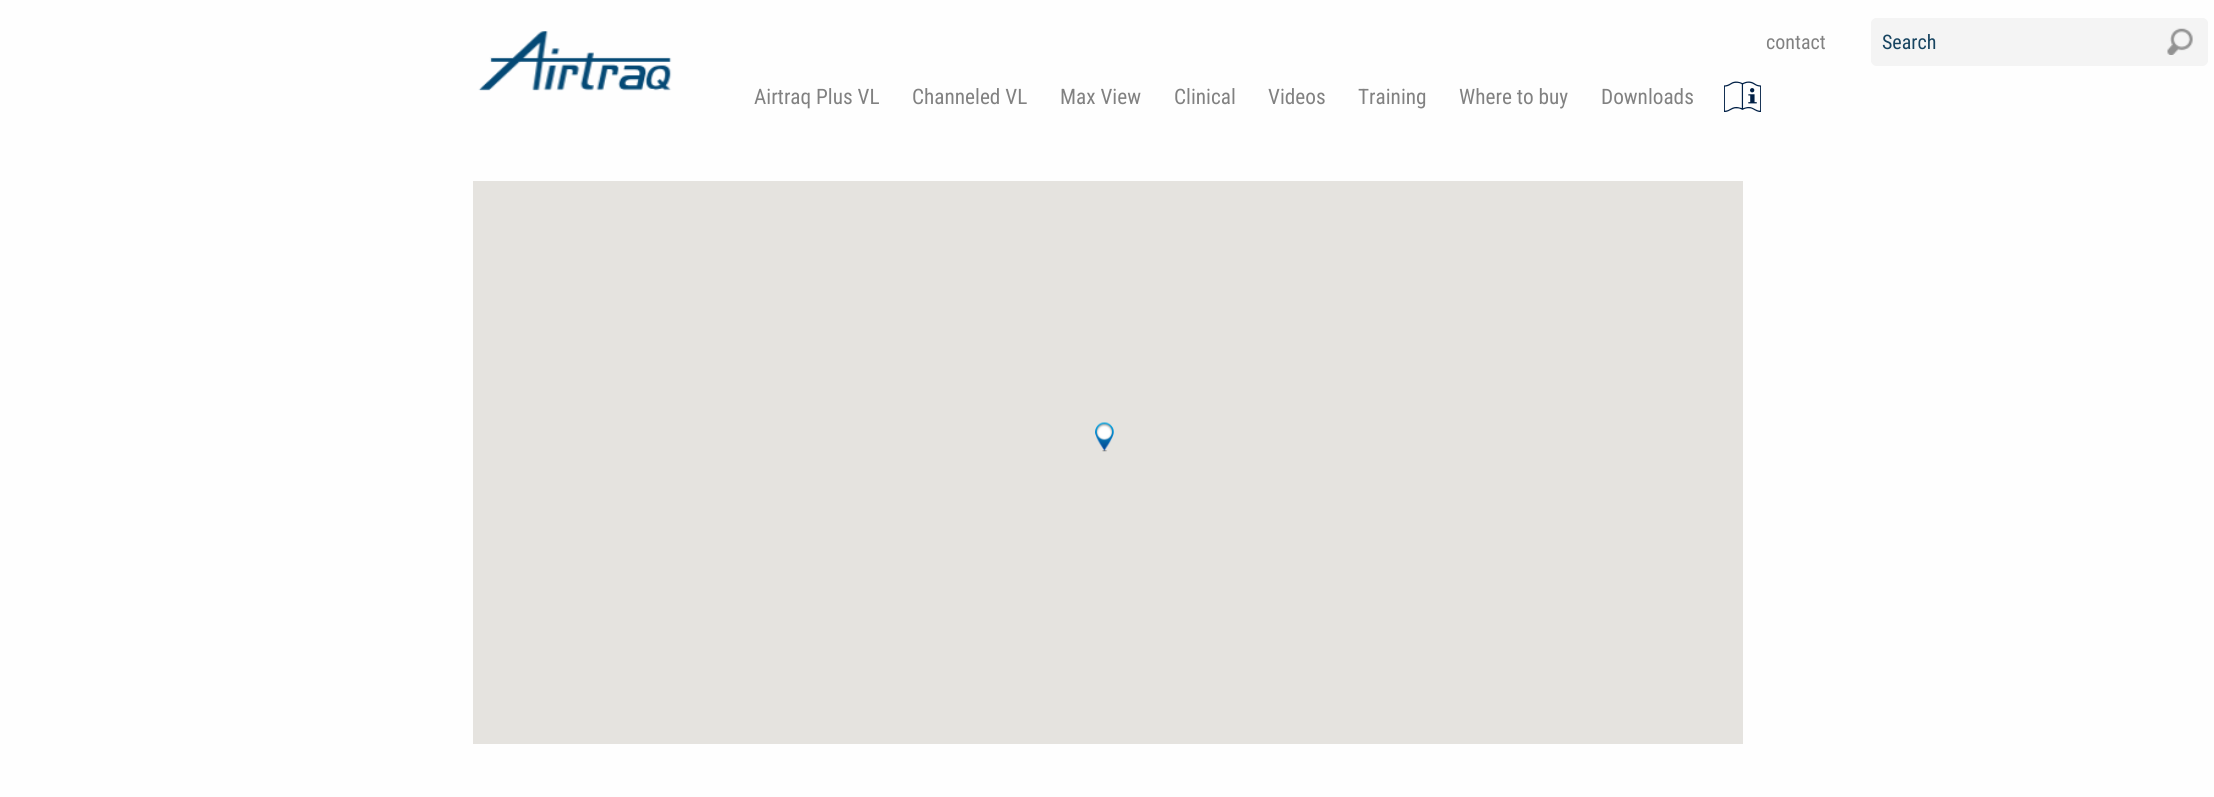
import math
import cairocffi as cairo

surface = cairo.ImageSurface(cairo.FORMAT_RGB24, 2214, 797)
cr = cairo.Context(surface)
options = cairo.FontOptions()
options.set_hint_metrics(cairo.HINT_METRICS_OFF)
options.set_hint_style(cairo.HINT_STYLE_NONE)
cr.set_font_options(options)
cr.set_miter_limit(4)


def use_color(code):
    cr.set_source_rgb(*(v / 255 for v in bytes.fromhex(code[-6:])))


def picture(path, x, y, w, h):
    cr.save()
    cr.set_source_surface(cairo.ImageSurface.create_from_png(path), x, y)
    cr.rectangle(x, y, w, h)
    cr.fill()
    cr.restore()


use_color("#fefefe")
cr.paint()
picture("img1.png", 478, 31, 194, 60)
cr.select_font_face("Roboto Condensed")
cr.set_font_size(20)
use_color("#818181")
cr.move_to(1766, 49)
cr.show_text("contact")
use_color("#f4f4f4")
cr.new_path()
cr.move_to(1877, 18)
cr.line_to(2139, 18)
cr.line_to(2139, 66)
cr.line_to(1877, 66)
cr.curve_to(1873.5, 66, 1871, 63.5, 1871, 60)
cr.line_to(1871, 24)
cr.curve_to(1871, 20.5, 1873.5, 18, 1877, 18)
cr.close_path()
cr.fill()
cr.set_fill_rule(cairo.FILL_RULE_EVEN_ODD)
cr.new_path()
cr.move_to(1878, 18)
cr.line_to(2139, 18)
cr.line_to(2139, 66)
cr.line_to(1878, 66)
cr.curve_to(1874, 66, 1871, 63, 1871, 60)
cr.line_to(1871, 24)
cr.curve_to(1871, 20, 1874, 18, 1878, 18)
cr.close_path()
cr.move_to(1878, 19)
cr.line_to(2139, 19)
cr.line_to(2139, 65)
cr.line_to(1878, 65)
cr.curve_to(1875, 65, 1872, 63, 1872, 60)
cr.line_to(1872, 24)
cr.curve_to(1872, 21, 1875, 19, 1878, 19)
cr.close_path()
cr.fill()
use_color("#174460")
cr.move_to(1882, 49)
cr.show_text("Search")
use_color("#f4f4f4")
cr.new_path()
cr.move_to(2139, 18)
cr.line_to(2202, 18)
cr.curve_to(2205.5, 18, 2208, 20.5, 2208, 24)
cr.line_to(2208, 60)
cr.curve_to(2208, 63.5, 2205.5, 66, 2202, 66)
cr.line_to(2139, 66)
cr.close_path()
cr.fill()
picture("img2.png", 2167, 28, 26, 27)
cr.new_path()
cr.move_to(2139, 18)
cr.line_to(2201, 18)
cr.curve_to(2205, 18, 2208, 20, 2208, 24)
cr.line_to(2208, 60)
cr.curve_to(2208, 63, 2205, 66, 2201, 66)
cr.line_to(2139, 66)
cr.close_path()
cr.move_to(2139, 19)
cr.line_to(2201, 19)
cr.curve_to(2204, 19, 2206, 21, 2206, 24)
cr.line_to(2206, 60)
cr.curve_to(2206, 63, 2204, 65, 2201, 65)
cr.line_to(2139, 65)
cr.close_path()
cr.fill()
cr.set_font_size(21.25)
use_color("#818181")
cr.move_to(754, 104)
cr.show_text("Airtraq Plus VL")
cr.move_to(912, 104)
cr.show_text("Channeled VL")
cr.move_to(1060, 104)
cr.show_text("Max View")
cr.move_to(1174, 104)
cr.show_text("Clinical")
cr.move_to(1268, 104)
cr.show_text("Videos")
cr.move_to(1358, 104)
cr.show_text("Training")
cr.move_to(1459, 104)
cr.show_text("Where to buy")
cr.move_to(1601, 104)
cr.show_text("Downloads")
picture("img3.png", 1724, 81, 37, 31)
use_color("#e5e3df")
cr.rectangle(473, 181, 1270, 563)
cr.fill()
picture("img4.png", 1095, 422, 19, 30)
surface.write_to_png("result.png")
